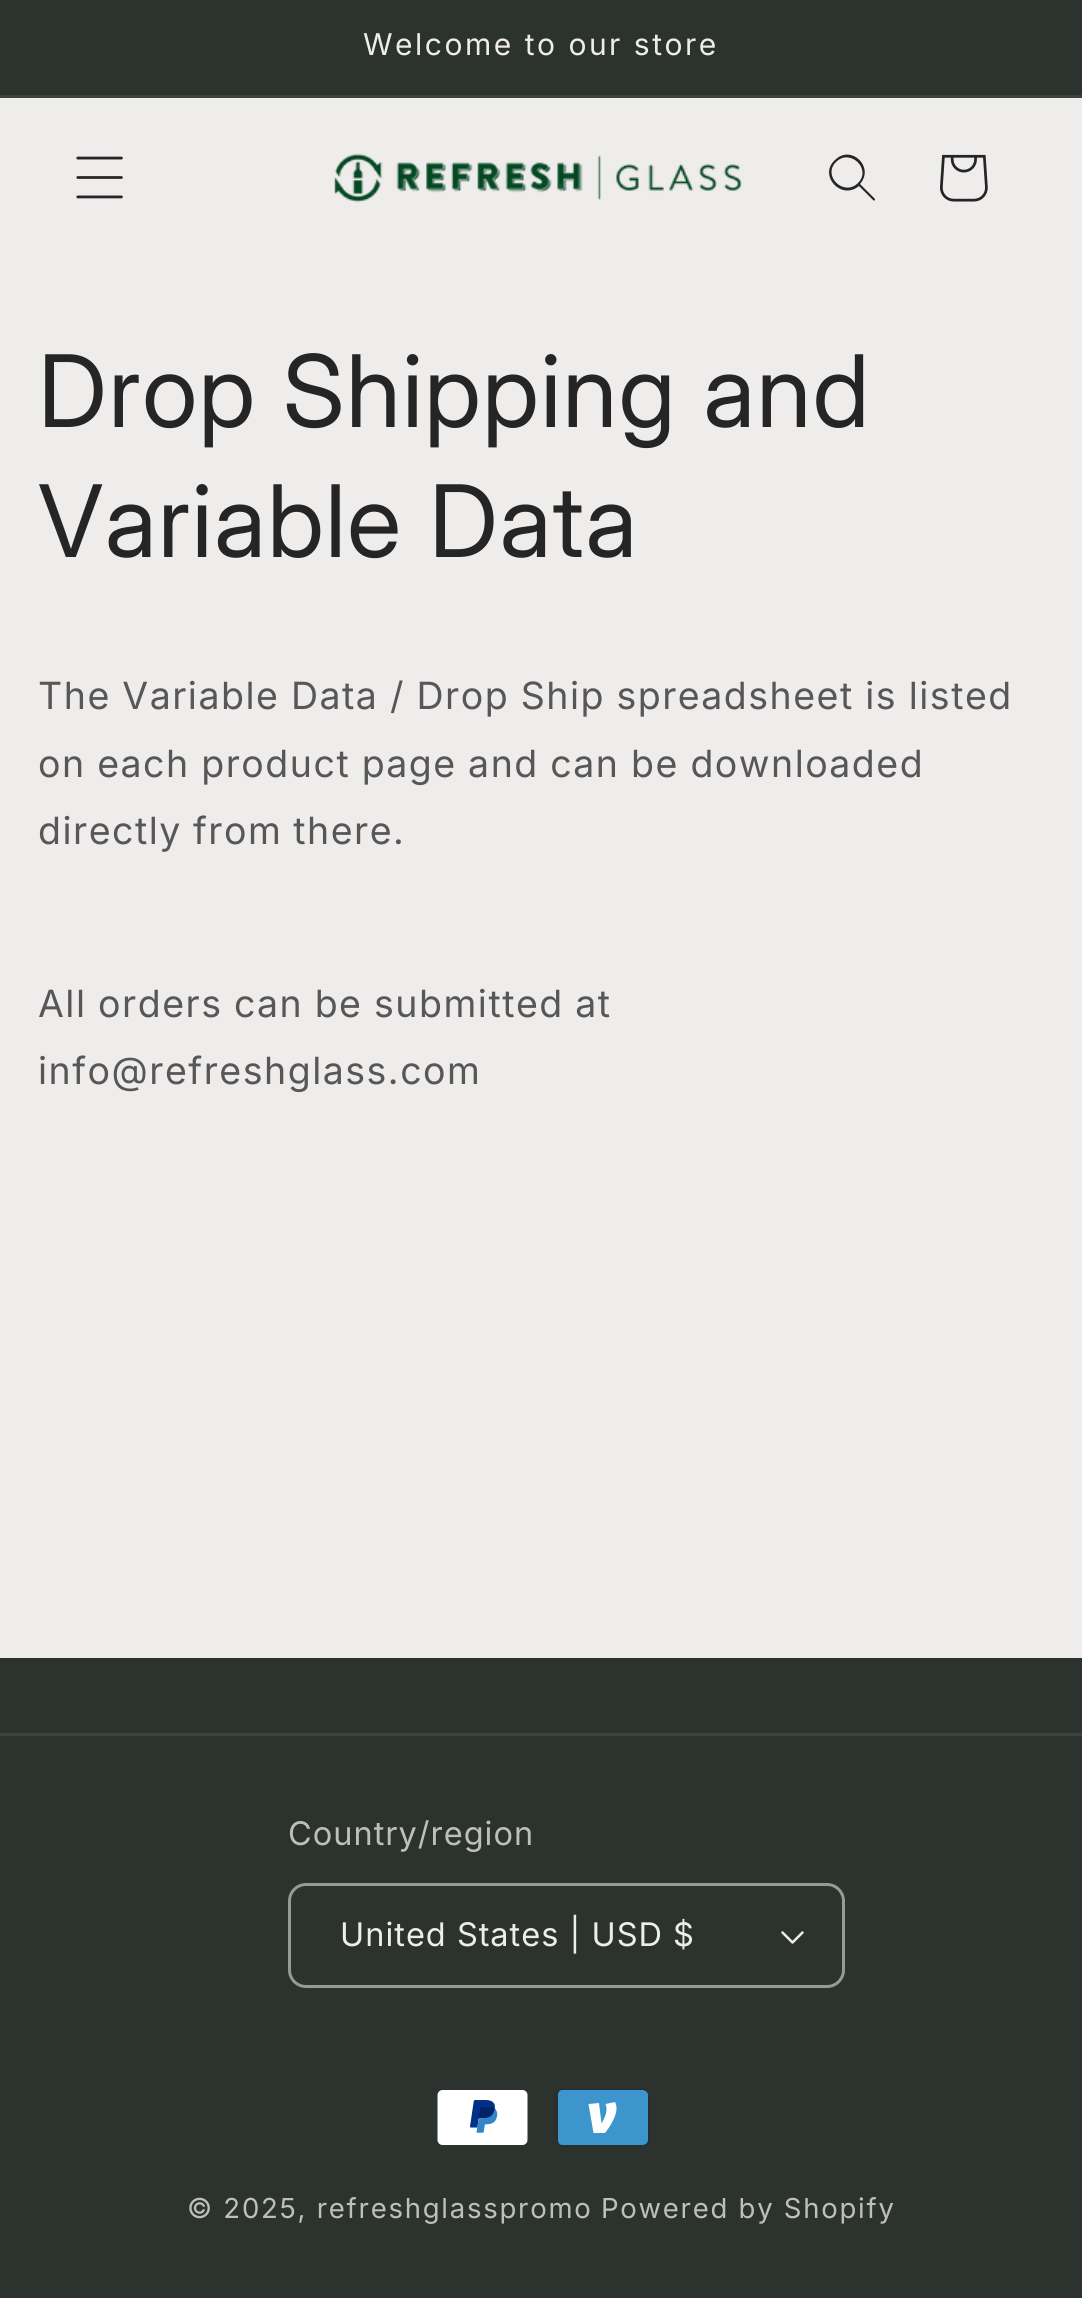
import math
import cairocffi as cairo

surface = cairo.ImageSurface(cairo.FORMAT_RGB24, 1082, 2298)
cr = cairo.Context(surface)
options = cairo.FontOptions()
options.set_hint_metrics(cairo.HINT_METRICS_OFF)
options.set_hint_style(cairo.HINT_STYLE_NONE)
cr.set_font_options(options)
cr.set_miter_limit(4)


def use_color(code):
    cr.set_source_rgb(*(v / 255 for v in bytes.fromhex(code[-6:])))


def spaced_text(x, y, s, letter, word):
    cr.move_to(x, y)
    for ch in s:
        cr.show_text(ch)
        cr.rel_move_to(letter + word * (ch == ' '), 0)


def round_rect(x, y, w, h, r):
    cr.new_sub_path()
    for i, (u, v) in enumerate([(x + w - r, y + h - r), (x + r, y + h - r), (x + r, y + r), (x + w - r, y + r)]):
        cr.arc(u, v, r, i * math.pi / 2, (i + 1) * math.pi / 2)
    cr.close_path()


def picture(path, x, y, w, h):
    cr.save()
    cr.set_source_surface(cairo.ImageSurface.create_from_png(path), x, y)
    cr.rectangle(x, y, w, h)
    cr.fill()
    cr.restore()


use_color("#efecec")
cr.paint()
use_color("#2c332f")
cr.rectangle(0, 0, 1082, 95)
cr.fill()
use_color("#3c423e")
cr.rectangle(0, 95, 1082, 3)
cr.fill()
cr.select_font_face("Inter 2")
cr.set_font_size(30)
use_color("#efecec")
spaced_text(363, 55, "Welcome to our store", 2.5, 0)
picture("img1.png", 76, 156, 47, 43)
picture("img2.png", 334, 153, 408, 50)
use_color("#252525")
cr.set_fill_rule(cairo.FILL_RULE_EVEN_ODD)
cr.new_path()
cr.move_to(858, 183)
cr.curve_to(844, 197, 822, 176, 836, 162)
cr.curve_to(850, 148, 872, 169, 858, 183)
cr.move_to(859, 186)
cr.curve_to(841, 201, 818, 175, 835, 160)
cr.curve_to(851, 144, 875, 167, 860, 184)
cr.line_to(875, 199)
cr.curve_to(875, 201, 874, 201, 873, 200)
cr.close_path()
cr.fill()
picture("img3.png", 940, 154, 48, 48)
cr.select_font_face("Inter")
cr.set_font_size(100)
spaced_text(38, 427, "Drop Shipping and", 1.5, 0)
spaced_text(38, 557, "Variable Data", 1.5, 0)
cr.select_font_face("Inter 2")
cr.set_font_size(37.5)
use_color("#585757")
spaced_text(38, 709, "The Variable Data / Drop Ship spreadsheet is listed", 1.5, -0.5)
spaced_text(38, 777, "on each product page and can be downloaded", 1.5, -0.5)
spaced_text(38, 844, "directly from there.", 1.5, -1)
spaced_text(38, 1017, "All orders can be submitted at", 1.5, -0.5)
spaced_text(38, 1084, "info@refreshglass.com", 1.5, 0)
use_color("#2c332f")
cr.rectangle(0, 1658, 1082, 640)
cr.fill()
use_color("#3c423e")
cr.rectangle(0, 1733, 1082, 3)
cr.fill()
cr.set_font_size(32.5)
use_color("#bebebd")
spaced_text(288, 1845, "Country/region", 1, 0)
picture("img4.png", 781, 1931, 23, 13)
round_rect(289.5, 1884.5, 554, 102, 16.5)
use_color("#979997")
cr.set_line_width(3)
cr.stroke()
use_color("#efecec")
spaced_text(340, 1946, "United States | USD $", 1, 0)
picture("img5.png", 437, 2090, 91, 55)
use_color("#292f2c")
round_rect(555, 2088, 95, 60, 8)
cr.fill()
use_color("#3d95ce")
cr.new_path()
cr.move_to(642, 2090)
cr.curve_to(645, 2090, 648, 2092, 648, 2095)
cr.line_to(648, 2140)
cr.curve_to(648, 2143, 645, 2145, 642, 2145)
cr.line_to(562, 2145)
cr.curve_to(560, 2145, 558, 2143, 558, 2140)
cr.line_to(558, 2095)
cr.curve_to(558, 2092, 560, 2090, 562, 2090)
cr.line_to(642, 2090)
cr.fill()
use_color("#ffffff")
cr.set_fill_rule(cairo.FILL_RULE_WINDING)
cr.new_path()
cr.move_to(616.5, 2108.5)
cr.curve_to(616.5, 2116, 610.5, 2126, 605, 2133)
cr.line_to(593.5, 2133)
cr.line_to(588.5, 2104)
cr.line_to(599, 2103)
cr.line_to(601.5, 2123.5)
cr.curve_to(604.5, 2118, 608.5, 2110.5, 605.5, 2104)
cr.line_to(615, 2102)
cr.curve_to(616, 2104, 616.5, 2106, 616.5, 2108.5)
cr.close_path()
cr.fill()
cr.set_font_size(27.5)
use_color("#bebebd")
spaced_text(187, 2218, "© 2025, refreshglasspromo", 1.75, 0)
spaced_text(601, 2218, "Powered by Shopify", 1.75, 0)
surface.write_to_png("result.png")
